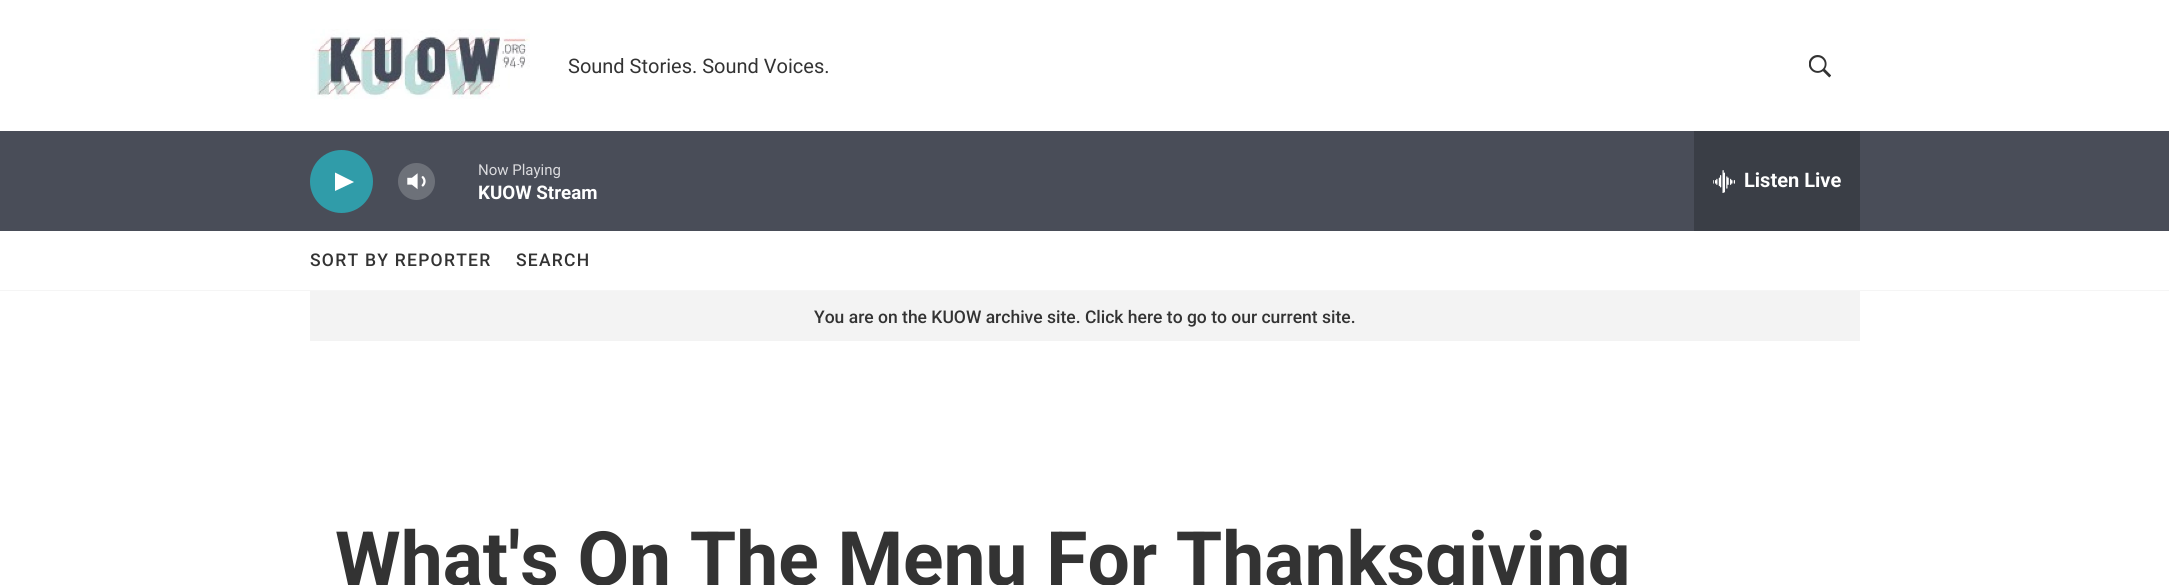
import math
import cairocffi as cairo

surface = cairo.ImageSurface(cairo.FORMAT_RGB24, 2169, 585)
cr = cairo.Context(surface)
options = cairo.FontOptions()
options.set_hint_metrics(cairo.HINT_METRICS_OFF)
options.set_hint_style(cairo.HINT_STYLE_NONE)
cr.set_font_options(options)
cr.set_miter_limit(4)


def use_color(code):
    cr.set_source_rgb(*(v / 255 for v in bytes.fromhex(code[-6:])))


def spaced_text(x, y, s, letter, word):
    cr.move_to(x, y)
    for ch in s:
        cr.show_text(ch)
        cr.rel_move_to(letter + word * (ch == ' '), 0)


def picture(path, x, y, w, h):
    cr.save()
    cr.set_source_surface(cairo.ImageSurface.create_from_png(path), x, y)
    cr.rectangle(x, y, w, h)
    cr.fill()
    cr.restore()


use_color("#ffffff")
cr.paint()
use_color("#f5f5f5")
cr.rectangle(0, 290, 2169, 1)
cr.fill()
picture("img1.png", 310, 29, 220, 71)
cr.select_font_face("Roboto")
cr.set_font_size(20)
use_color("#333333")
cr.move_to(568, 73)
cr.show_text("Sound Stories. Sound Voices.")
picture("img2.png", 1809, 55, 22, 23)
use_color("#494d58")
cr.rectangle(0, 131, 2169, 100)
cr.fill()
use_color("#309ca9")
cr.arc(341.5, 181.5, 31.5, 0, 2 * math.pi)
cr.fill()
use_color("#ffffff")
cr.new_path()
cr.move_to(335, 172.5)
cr.line_to(354, 182)
cr.line_to(335, 191)
cr.close_path()
cr.fill()
picture("img3.png", 407, 173, 19, 17)
cr.set_source_rgba(1, 1, 1, 0.2)
cr.arc(416.5, 181.5, 18.5, 0, 2 * math.pi)
cr.fill()
cr.set_font_size(15)
use_color("#dbdbde")
cr.move_to(478, 175)
cr.show_text("Now Playing")
cr.select_font_face("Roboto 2", cairo.FONT_SLANT_NORMAL, cairo.FONT_WEIGHT_BOLD)
cr.set_font_size(18.75)
use_color("#ffffff")
cr.move_to(478, 199)
cr.show_text("KUOW Stream")
use_color("#3a3e46")
cr.rectangle(1694, 131, 166, 100)
cr.fill()
picture("img4.png", 1713, 170, 22, 23)
cr.set_font_size(20)
use_color("#ffffff")
cr.move_to(1744, 187)
cr.show_text("Listen Live")
cr.select_font_face("Roboto Medium")
cr.set_font_size(17.5)
use_color("#333333")
spaced_text(310, 266, "SORT BY REPORTER", 1.25, 0)
spaced_text(516, 266, "SEARCH", 1.25, 0)
use_color("#f3f3f3")
cr.rectangle(310, 291, 1550, 50)
cr.fill()
use_color("#333333")
cr.move_to(814, 323)
cr.show_text("You are on the KUOW archive site. Click here to go to our current site.")
cr.select_font_face("Roboto", cairo.FONT_SLANT_NORMAL, cairo.FONT_WEIGHT_BOLD)
cr.set_font_size(75)
cr.move_to(335, 585)
cr.show_text("What's On The Menu For Thanksgiving")
surface.write_to_png("result.png")
